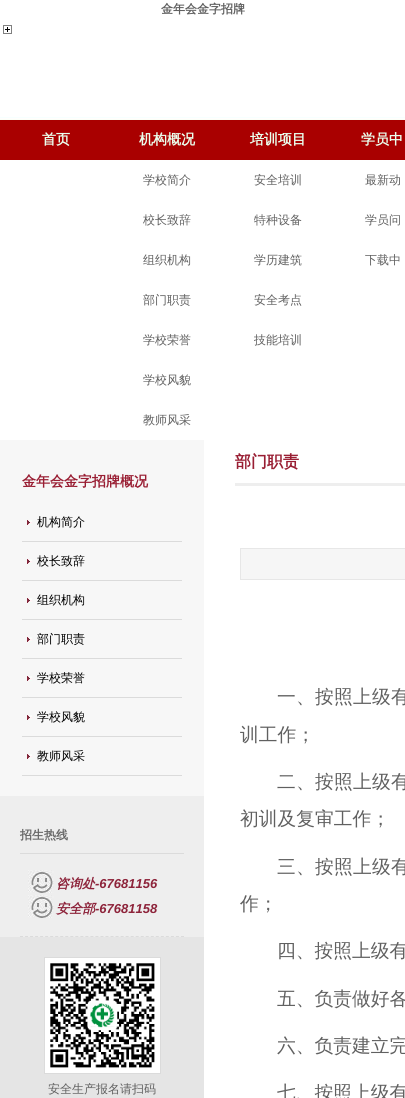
import math
import cairocffi as cairo

surface = cairo.ImageSurface(cairo.FORMAT_RGB24, 405, 1098)
cr = cairo.Context(surface)
options = cairo.FontOptions()
options.set_hint_metrics(cairo.HINT_METRICS_OFF)
options.set_hint_style(cairo.HINT_STYLE_NONE)
cr.set_font_options(options)
cr.set_miter_limit(4)


def use_color(code):
    cr.set_source_rgb(*(v / 255 for v in bytes.fromhex(code[-6:])))


def spaced_text(x, y, s, letter, word):
    cr.move_to(x, y)
    for ch in s:
        cr.show_text(ch)
        cr.rel_move_to(letter + word * (ch == ' '), 0)


def picture(path, x, y, w, h):
    cr.save()
    cr.set_source_surface(cairo.ImageSurface.create_from_png(path), x, y)
    cr.rectangle(x, y, w, h)
    cr.fill()
    cr.restore()


use_color("#ffffff")
cr.paint()
cr.select_font_face("WenQuanYi Zen Hei", cairo.FONT_SLANT_NORMAL, cairo.FONT_WEIGHT_BOLD)
cr.set_font_size(12)
use_color("#606060")
cr.move_to(161, 13)
cr.show_text("金年会金字招牌")
picture("img1.png", 0, 117, 405, 3)
picture("img2.png", 3, 25, 9, 9)
use_color("#a90000")
cr.rectangle(0, 120, 405, 40)
cr.fill()
cr.set_font_size(14)
use_color("#eaffed")
cr.move_to(42, 144)
cr.show_text("首页")
cr.move_to(139, 144)
cr.show_text("机构概况")
cr.select_font_face("WenQuanYi Zen Hei Medium")
cr.set_font_size(12)
use_color("#606060")
cr.move_to(143, 184)
cr.show_text("学校简介")
cr.move_to(143, 224)
cr.show_text("校长致辞")
cr.move_to(143, 264)
cr.show_text("组织机构")
cr.move_to(143, 304)
cr.show_text("部门职责")
cr.move_to(143, 344)
cr.show_text("学校荣誉")
cr.move_to(143, 384)
cr.show_text("学校风貌")
cr.move_to(143, 424)
cr.show_text("教师风采")
cr.select_font_face("WenQuanYi Zen Hei", cairo.FONT_SLANT_NORMAL, cairo.FONT_WEIGHT_BOLD)
cr.set_font_size(14)
use_color("#eaffed")
cr.move_to(250, 144)
cr.show_text("培训项目")
cr.select_font_face("WenQuanYi Zen Hei Medium")
cr.set_font_size(12)
use_color("#606060")
cr.move_to(254, 184)
cr.show_text("安全培训")
cr.move_to(254, 224)
cr.show_text("特种设备")
cr.move_to(254, 264)
cr.show_text("学历建筑")
cr.move_to(254, 304)
cr.show_text("安全考点")
cr.move_to(254, 344)
cr.show_text("技能培训")
cr.select_font_face("WenQuanYi Zen Hei", cairo.FONT_SLANT_NORMAL, cairo.FONT_WEIGHT_BOLD)
cr.set_font_size(14)
use_color("#eaffed")
cr.move_to(361, 144)
cr.show_text("学员中")
cr.select_font_face("WenQuanYi Zen Hei Medium")
cr.set_font_size(12)
use_color("#606060")
cr.move_to(365, 184)
cr.show_text("最新动")
cr.move_to(365, 224)
cr.show_text("学员问")
cr.move_to(365, 264)
cr.show_text("下载中")
use_color("#f7f7f7")
cr.rectangle(0, 440, 204, 356)
cr.fill()
cr.select_font_face("WenQuanYi Zen Hei", cairo.FONT_SLANT_NORMAL, cairo.FONT_WEIGHT_BOLD)
cr.set_font_size(14)
use_color("#991e33")
cr.move_to(22, 486)
cr.show_text("金年会金字招牌概况")
picture("img3.png", 27, 520, 5, 5)
use_color("#dbdbdb")
cr.rectangle(22, 541, 160, 1)
cr.fill()
cr.select_font_face("WenQuanYi Zen Hei Medium")
cr.set_font_size(12)
use_color("#000000")
cr.move_to(37, 526)
cr.show_text("机构简介")
picture("img3.png", 27, 559, 5, 5)
use_color("#dbdbdb")
cr.rectangle(22, 580, 160, 1)
cr.fill()
use_color("#000000")
cr.move_to(37, 565)
cr.show_text("校长致辞")
picture("img3.png", 27, 598, 5, 5)
use_color("#dbdbdb")
cr.rectangle(22, 619, 160, 1)
cr.fill()
use_color("#000000")
cr.move_to(37, 604)
cr.show_text("组织机构")
picture("img3.png", 27, 637, 5, 5)
use_color("#dbdbdb")
cr.rectangle(22, 658, 160, 1)
cr.fill()
use_color("#000000")
cr.move_to(37, 643)
cr.show_text("部门职责")
picture("img3.png", 27, 676, 5, 5)
use_color("#dbdbdb")
cr.rectangle(22, 697, 160, 1)
cr.fill()
use_color("#000000")
cr.move_to(37, 682)
cr.show_text("学校荣誉")
picture("img3.png", 27, 715, 5, 5)
use_color("#dbdbdb")
cr.rectangle(22, 736, 160, 1)
cr.fill()
use_color("#000000")
cr.move_to(37, 721)
cr.show_text("学校风貌")
picture("img3.png", 27, 754, 5, 5)
use_color("#dbdbdb")
cr.rectangle(22, 775, 160, 1)
cr.fill()
use_color("#000000")
cr.move_to(37, 760)
cr.show_text("教师风采")
use_color("#eeeeee")
cr.rectangle(0, 796, 204, 141)
cr.fill()
use_color("#dbdbdb")
cr.rectangle(20, 853, 164, 1)
cr.fill()
cr.select_font_face("WenQuanYi Zen Hei", cairo.FONT_SLANT_NORMAL, cairo.FONT_WEIGHT_BOLD)
use_color("#666666")
cr.move_to(20, 839)
cr.show_text("招生热线")
cr.new_path()
cr.move_to(20, 936.5)
cr.line_to(184, 936.5)
use_color("#dbdbdb")
cr.set_line_width(1)
cr.set_dash([3, 2.03])
cr.stroke()
picture("img4.png", 28, 870, 26, 23)
cr.select_font_face("WenQuanYi Zen Hei", cairo.FONT_SLANT_ITALIC, cairo.FONT_WEIGHT_BOLD)
cr.set_font_size(13)
use_color("#8d233a")
cr.move_to(56, 888)
cr.show_text("咨询处")
cr.select_font_face("Liberation Sans", cairo.FONT_SLANT_ITALIC, cairo.FONT_WEIGHT_BOLD)
cr.move_to(95, 888)
cr.show_text("-67681156")
picture("img4.png", 28, 895, 26, 23)
cr.select_font_face("WenQuanYi Zen Hei", cairo.FONT_SLANT_ITALIC, cairo.FONT_WEIGHT_BOLD)
cr.move_to(56, 913)
cr.show_text("安全部")
cr.select_font_face("Liberation Sans", cairo.FONT_SLANT_ITALIC, cairo.FONT_WEIGHT_BOLD)
cr.move_to(95, 913)
cr.show_text("-67681158")
use_color("#e5e5e5")
cr.rectangle(0, 937, 204, 161)
cr.fill()
use_color("#ffffff")
cr.rectangle(44.5, 957.5, 116, 116)
cr.fill_preserve()
use_color("#dbdbdb")
cr.set_dash([])
cr.stroke()
picture("img5.png", 50, 963, 105, 105)
cr.select_font_face("WenQuanYi Zen Hei Medium")
cr.set_font_size(12)
use_color("#606060")
cr.move_to(48, 1093)
cr.show_text("安全生产报名请扫码")
use_color("#eeeeee")
cr.rectangle(235, 483, 170, 3)
cr.fill()
cr.select_font_face("WenQuanYi Zen Hei", cairo.FONT_SLANT_NORMAL, cairo.FONT_WEIGHT_BOLD)
cr.set_font_size(16)
use_color("#991e33")
cr.move_to(235, 467)
cr.show_text("部门职责")
use_color("#f6f6f6")
cr.rectangle(240.5, 548.5, 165, 31)
cr.fill_preserve()
use_color("#e7e7e7")
cr.stroke()
cr.select_font_face("WenQuanYi Zen Hei Medium")
cr.set_font_size(18.75)
use_color("#606060")
spaced_text(277, 703, "一、按照上级有", 0.25, 0)
cr.move_to(240, 741)
cr.show_text("训工作；")
spaced_text(277, 788, "二、按照上级有", 0.25, 0)
cr.move_to(240, 825)
cr.show_text("初训及复审工作；")
spaced_text(277, 873, "三、按照上级有", 0.25, 0)
cr.move_to(240, 910)
cr.show_text("作；")
cr.move_to(277, 957)
cr.show_text("四、按照上级有")
cr.move_to(277, 1005)
cr.show_text("五、负责做好各")
cr.move_to(277, 1052)
cr.show_text("六、负责建立完")
cr.move_to(277, 1099)
cr.show_text("七、按照上级有")
surface.write_to_png("result.png")
